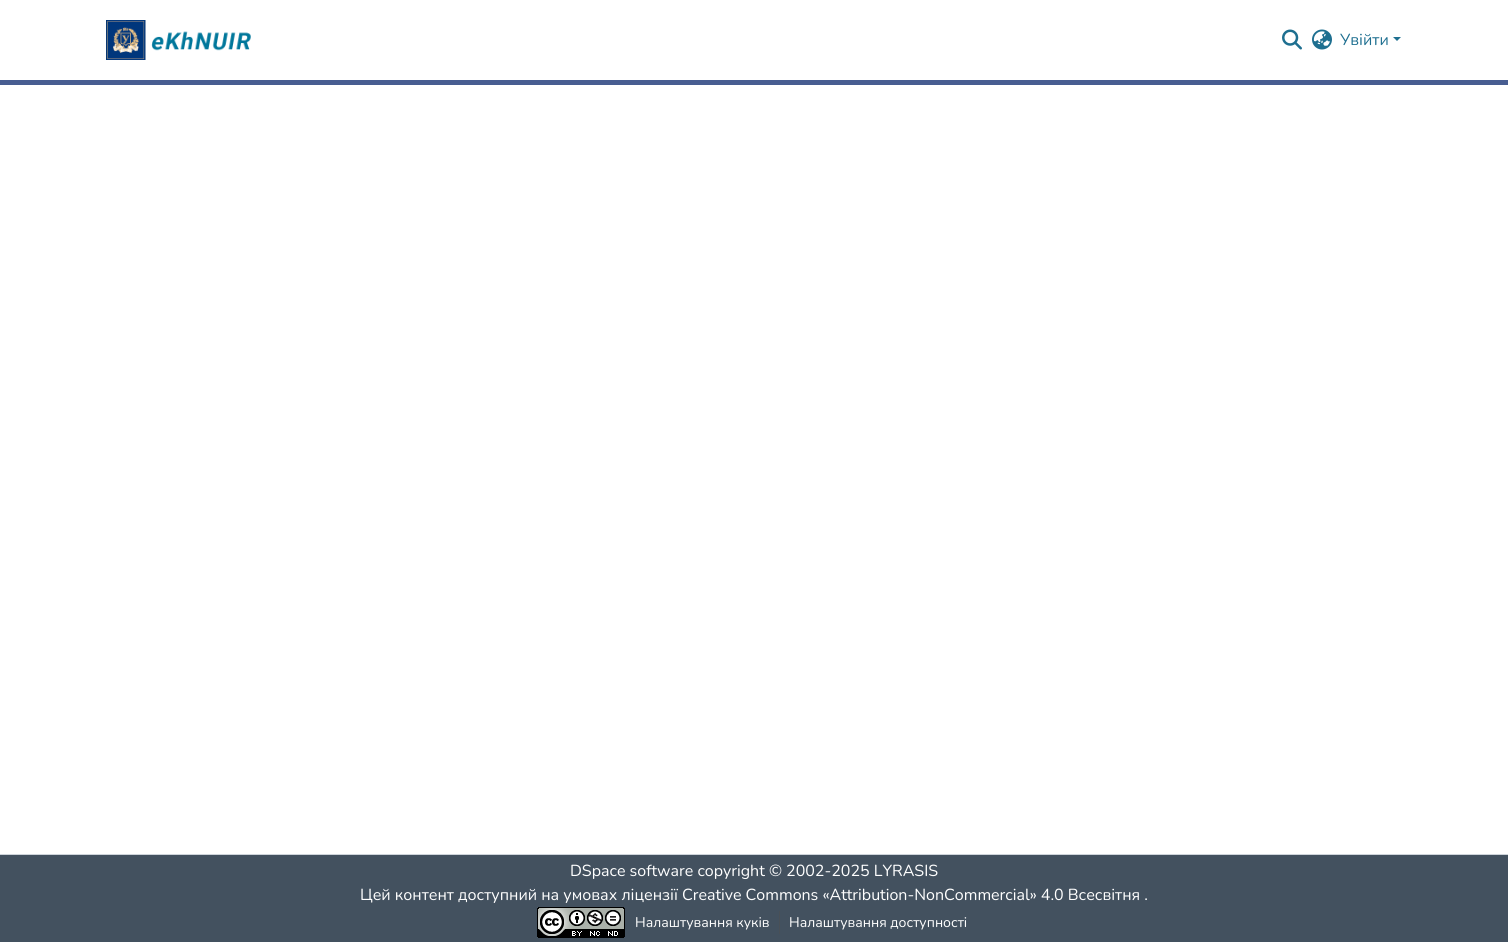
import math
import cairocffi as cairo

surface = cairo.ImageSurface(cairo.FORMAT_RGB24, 1508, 942)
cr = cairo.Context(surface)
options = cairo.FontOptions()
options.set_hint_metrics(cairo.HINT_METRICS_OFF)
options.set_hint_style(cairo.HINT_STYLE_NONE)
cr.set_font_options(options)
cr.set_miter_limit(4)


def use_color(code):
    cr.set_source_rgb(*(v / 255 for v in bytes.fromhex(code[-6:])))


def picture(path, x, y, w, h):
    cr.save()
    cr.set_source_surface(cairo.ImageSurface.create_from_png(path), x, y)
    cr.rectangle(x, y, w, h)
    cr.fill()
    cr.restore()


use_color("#ffffff")
cr.paint()
use_color("#485d91")
cr.rectangle(0, 80, 1508, 5)
cr.fill()
picture("img1.png", 106, 20, 145, 40)
picture("img2.png", 1282, 29, 20, 21)
picture("img3.png", 1312, 29, 20, 21)
cr.select_font_face("Nunito")
cr.set_font_size(16)
use_color("#1e6f90")
cr.move_to(1340, 45)
cr.show_text("Увійти")
cr.new_path()
cr.move_to(1393, 37)
cr.line_to(1401, 37)
cr.line_to(1397, 41)
cr.close_path()
cr.fill()
use_color("#43515f")
cr.rectangle(0, 855, 1508, 87)
cr.fill()
use_color("#ced4da")
cr.rectangle(0, 854, 1508, 1)
cr.fill()
use_color("#ffffff")
cr.move_to(570, 876)
cr.show_text("DSpace software copyright © 2002-2025 LYRASIS")
cr.move_to(360, 900)
cr.show_text("Цей контент доступний на умовах ліцензії Creative Commons «Attribution-NonCommercial» 4.0 Всесвітня .")
picture("img4.png", 537, 907, 88, 31)
cr.set_font_size(14)
cr.move_to(635, 927)
cr.show_text("Налаштування куків")
use_color("#495057")
cr.rectangle(779, 911, 1, 23)
cr.fill()
use_color("#ffffff")
cr.move_to(789, 927)
cr.show_text("Налаштування доступності")
surface.write_to_png("result.png")
